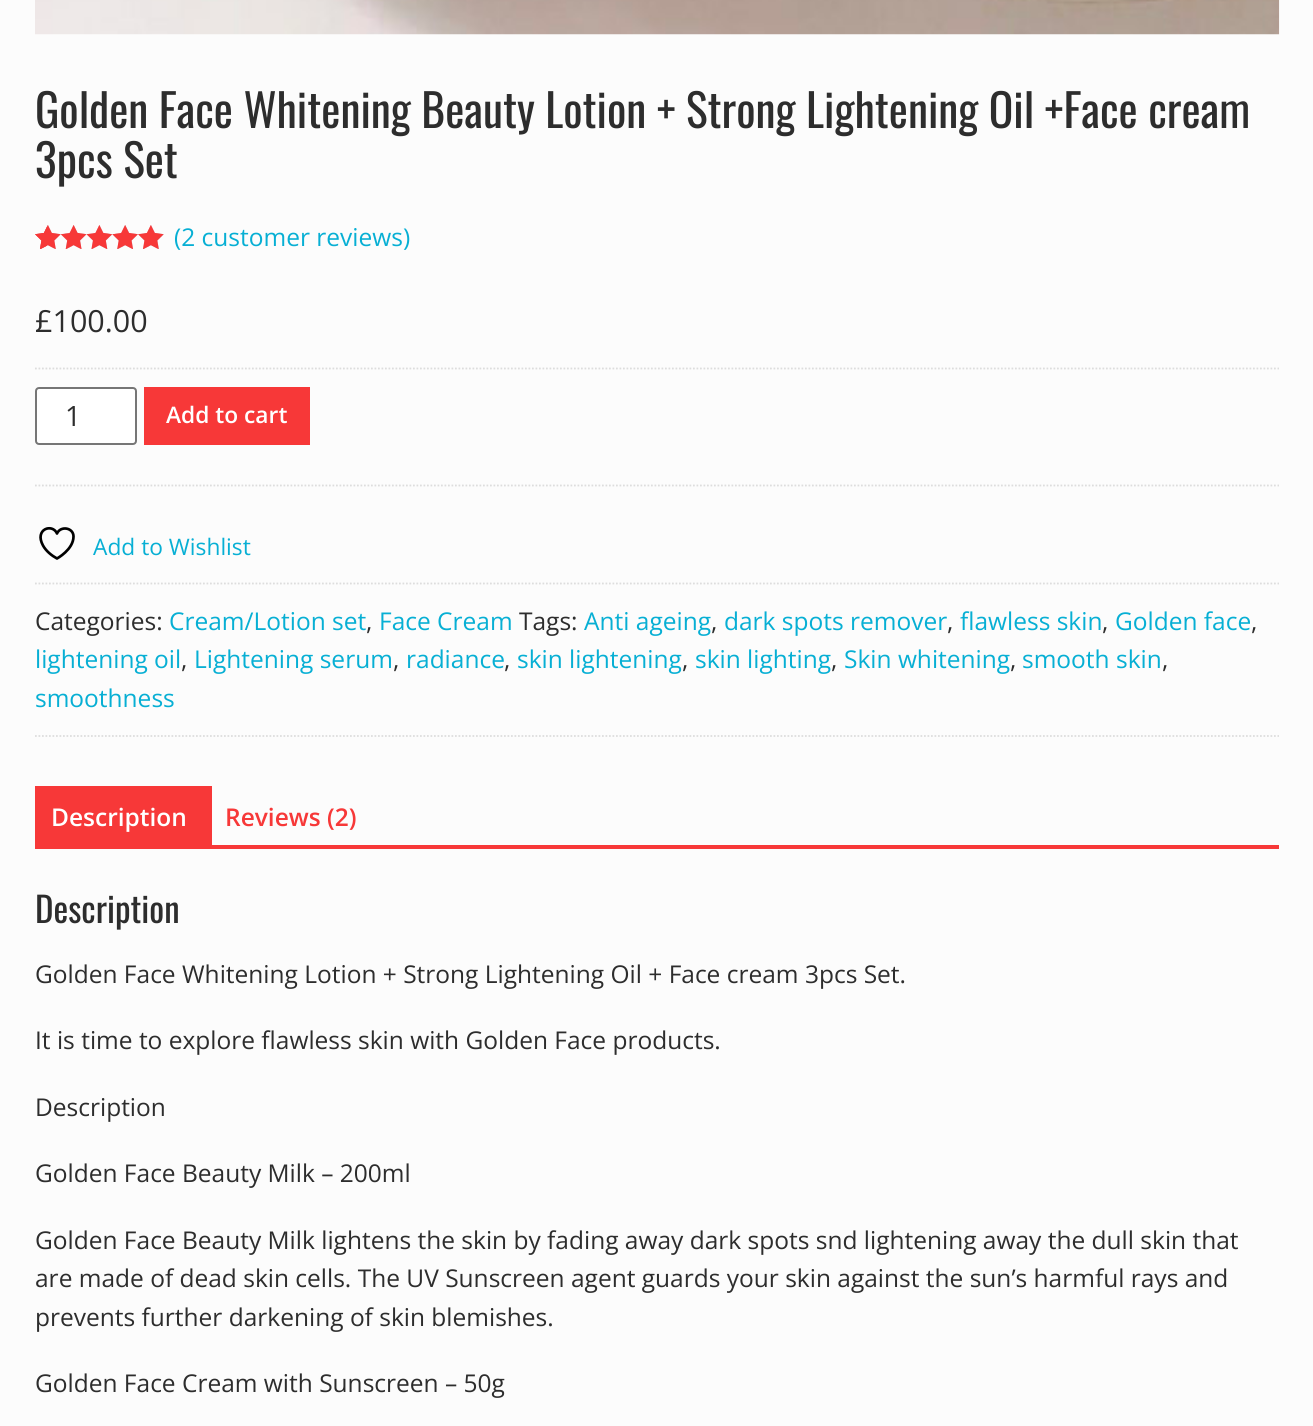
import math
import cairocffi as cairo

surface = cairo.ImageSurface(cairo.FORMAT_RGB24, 1313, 1426)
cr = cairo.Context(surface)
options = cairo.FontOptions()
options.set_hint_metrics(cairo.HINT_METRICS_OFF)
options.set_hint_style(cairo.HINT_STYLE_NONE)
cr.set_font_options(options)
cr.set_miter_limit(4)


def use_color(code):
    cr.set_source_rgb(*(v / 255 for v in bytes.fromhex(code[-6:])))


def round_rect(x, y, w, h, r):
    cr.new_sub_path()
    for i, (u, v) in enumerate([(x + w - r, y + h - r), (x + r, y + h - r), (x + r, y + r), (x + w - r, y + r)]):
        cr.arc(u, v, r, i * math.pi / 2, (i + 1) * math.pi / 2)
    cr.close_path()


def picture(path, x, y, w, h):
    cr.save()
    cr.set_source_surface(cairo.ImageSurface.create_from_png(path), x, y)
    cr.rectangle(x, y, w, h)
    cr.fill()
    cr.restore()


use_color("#fcfcfc")
cr.paint()
picture("img1.png", 35, 0, 1245, 35)
cr.select_font_face("Oswald")
cr.set_font_size(45.5)
use_color("#2d2d2d")
cr.move_to(35, 128)
cr.show_text("Golden Face Whitening Beauty Lotion + Strong Lightening Oil +Face cream")
cr.move_to(35, 178)
cr.show_text("3pcs Set")
picture("img2.png", 35, 225, 129, 24)
picture("img3.png", 35, 225, 129, 24)
picture("img4.png", 35, 226, 12, 23)
cr.select_font_face("Open Sans")
cr.set_font_size(24.5)
use_color("#07afd4")
cr.move_to(174, 246)
cr.show_text("(2 customer reviews)")
cr.set_font_size(30.5)
use_color("#2d2d2d")
cr.move_to(35, 332)
cr.show_text("£100.00")
cr.new_path()
cr.move_to(35, 368.5)
cr.line_to(1279, 368.5)
use_color("#dddddd")
cr.set_line_width(1.8)
cr.set_dash([1.75, 1.75])
cr.stroke()
cr.new_path()
cr.move_to(35, 485.5)
cr.line_to(1279, 485.5)
cr.stroke()
use_color("#ffffff")
round_rect(36, 388, 100, 56, 3)
cr.fill_preserve()
use_color("#767676")
cr.set_line_width(2)
cr.set_dash([])
cr.stroke()
cr.set_font_size(28)
use_color("#2d2d2d")
cr.move_to(65, 426)
cr.show_text("1")
use_color("#f73838")
cr.rectangle(144, 387, 166, 58)
cr.fill()
cr.select_font_face("Open Sans SemiBold")
cr.set_font_size(22.75)
use_color("#ffffff")
cr.move_to(166, 423)
cr.show_text("Add to cart")
cr.new_path()
cr.move_to(73.5, 536.5)
cr.curve_to(73.5, 527.5, 60.5, 525.5, 57, 533.5)
cr.curve_to(52.5, 523, 34, 529, 43, 545.5)
cr.curve_to(46, 551, 51.5, 555.5, 57, 558.5)
cr.curve_to(57, 558.5, 73.5, 549.5, 73.5, 536.5)
cr.close_path()
use_color("#000000")
cr.set_line_width(2.7)
cr.set_line_cap(cairo.LINE_CAP_ROUND)
cr.set_line_join(cairo.LINE_JOIN_ROUND)
cr.stroke()
cr.select_font_face("Open Sans")
use_color("#07afd4")
cr.move_to(93, 555)
cr.show_text("Add to Wishlist")
cr.new_path()
cr.move_to(35, 583.5)
cr.line_to(1279, 583.5)
use_color("#dddddd")
cr.set_line_width(1.8)
cr.set_line_cap(cairo.LINE_CAP_BUTT)
cr.set_line_join(cairo.LINE_JOIN_MITER)
cr.set_dash([1.75, 1.75])
cr.stroke()
cr.new_path()
cr.move_to(35, 736)
cr.line_to(1279, 736)
cr.stroke()
cr.set_font_size(24.5)
use_color("#2d2d2d")
cr.move_to(35, 630)
cr.show_text("Categories:")
use_color("#07afd4")
cr.move_to(169, 630)
cr.show_text("Cream/Lotion set")
use_color("#2d2d2d")
cr.move_to(366, 630)
cr.show_text(",")
use_color("#07afd4")
cr.move_to(379, 630)
cr.show_text("Face Cream")
use_color("#2d2d2d")
cr.move_to(519, 630)
cr.show_text("Tags:")
use_color("#07afd4")
cr.move_to(584, 630)
cr.show_text("Anti ageing")
use_color("#2d2d2d")
cr.move_to(711, 630)
cr.show_text(",")
use_color("#07afd4")
cr.move_to(724, 630)
cr.show_text("dark spots remover")
use_color("#2d2d2d")
cr.move_to(947, 630)
cr.show_text(",")
use_color("#07afd4")
cr.move_to(960, 630)
cr.show_text("flawless skin")
use_color("#2d2d2d")
cr.move_to(1102, 630)
cr.show_text(",")
use_color("#07afd4")
cr.move_to(1115, 630)
cr.show_text("Golden face")
use_color("#2d2d2d")
cr.move_to(1251, 630)
cr.show_text(",")
use_color("#07afd4")
cr.move_to(35, 668)
cr.show_text("lightening oil")
use_color("#2d2d2d")
cr.move_to(181, 668)
cr.show_text(",")
use_color("#07afd4")
cr.move_to(194, 668)
cr.show_text("Lightening serum")
use_color("#2d2d2d")
cr.move_to(393, 668)
cr.show_text(",")
use_color("#07afd4")
cr.move_to(406, 668)
cr.show_text("radiance")
use_color("#2d2d2d")
cr.move_to(504, 668)
cr.show_text(",")
use_color("#07afd4")
cr.move_to(517, 668)
cr.show_text("skin lightening")
use_color("#2d2d2d")
cr.move_to(682, 668)
cr.show_text(",")
use_color("#07afd4")
cr.move_to(695, 668)
cr.show_text("skin lighting")
use_color("#2d2d2d")
cr.move_to(831, 668)
cr.show_text(",")
use_color("#07afd4")
cr.move_to(844, 668)
cr.show_text("Skin whitening")
use_color("#2d2d2d")
cr.move_to(1010, 668)
cr.show_text(",")
use_color("#07afd4")
cr.move_to(1022, 668)
cr.show_text("smooth skin")
use_color("#2d2d2d")
cr.move_to(1162, 668)
cr.show_text(",")
use_color("#07afd4")
cr.move_to(35, 707)
cr.show_text("smoothness")
use_color("#f73838")
cr.rectangle(35, 786, 177, 63)
cr.fill()
cr.select_font_face("Open Sans SemiBold")
use_color("#ffffff")
cr.move_to(51, 826)
cr.show_text("Description")
use_color("#f73838")
cr.move_to(225, 826)
cr.show_text("Reviews (2)")
cr.rectangle(212, 845, 1067, 4)
cr.fill()
cr.select_font_face("Oswald")
cr.set_font_size(35)
use_color("#2d2d2d")
cr.move_to(35, 923)
cr.show_text("Description")
cr.select_font_face("Open Sans")
cr.set_font_size(24.5)
cr.move_to(35, 983)
cr.show_text("Golden Face Whitening Lotion + Strong Lightening Oil + Face cream 3pcs Set.")
cr.move_to(35, 1049)
cr.show_text("It is time to explore flawless skin with Golden Face products.")
cr.move_to(35, 1116)
cr.show_text("Description")
cr.move_to(35, 1182)
cr.show_text("Golden Face Beauty Milk – 200ml")
cr.move_to(35, 1249)
cr.show_text("Golden Face Beauty Milk lightens the skin by fading away dark spots snd lightening away the dull skin that")
cr.move_to(35, 1287)
cr.show_text("are made of dead skin cells. The UV Sunscreen agent guards your skin against the sun’s harmful rays and")
cr.move_to(35, 1326)
cr.show_text("prevents further darkening of skin blemishes.")
cr.move_to(35, 1392)
cr.show_text("Golden Face Cream with Sunscreen – 50g")
surface.write_to_png("result.png")
